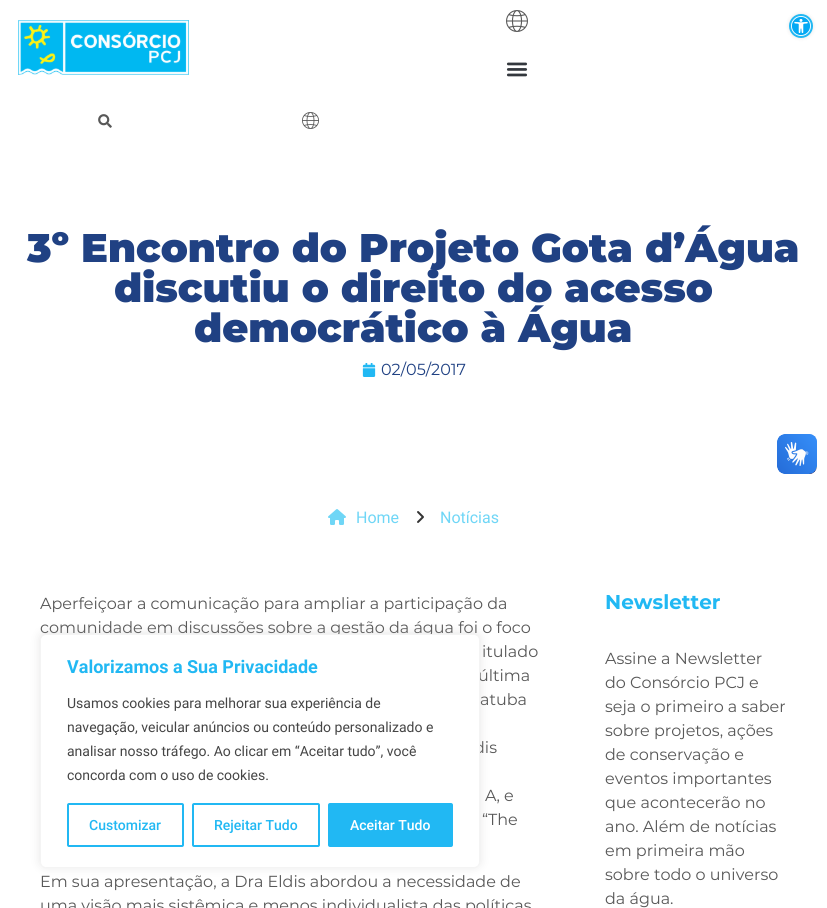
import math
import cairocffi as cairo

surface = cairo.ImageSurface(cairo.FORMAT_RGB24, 827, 908)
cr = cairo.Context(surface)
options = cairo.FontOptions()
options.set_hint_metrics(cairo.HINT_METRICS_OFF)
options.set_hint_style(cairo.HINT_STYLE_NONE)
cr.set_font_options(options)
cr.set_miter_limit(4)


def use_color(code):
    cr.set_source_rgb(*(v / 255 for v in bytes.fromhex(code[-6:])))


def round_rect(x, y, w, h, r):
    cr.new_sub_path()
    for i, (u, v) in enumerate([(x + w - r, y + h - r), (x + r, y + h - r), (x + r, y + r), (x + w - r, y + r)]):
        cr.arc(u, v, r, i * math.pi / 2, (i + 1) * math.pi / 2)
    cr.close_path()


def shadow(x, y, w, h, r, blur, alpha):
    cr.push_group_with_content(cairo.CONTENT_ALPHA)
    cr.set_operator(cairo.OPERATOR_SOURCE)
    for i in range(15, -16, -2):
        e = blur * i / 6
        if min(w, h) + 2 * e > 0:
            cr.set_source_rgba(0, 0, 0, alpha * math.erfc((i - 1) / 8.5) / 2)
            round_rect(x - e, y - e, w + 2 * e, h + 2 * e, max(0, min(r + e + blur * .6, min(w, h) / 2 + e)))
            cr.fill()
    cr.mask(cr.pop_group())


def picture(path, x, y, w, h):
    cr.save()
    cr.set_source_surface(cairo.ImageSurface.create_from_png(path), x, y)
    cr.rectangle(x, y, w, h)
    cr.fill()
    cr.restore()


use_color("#ffffff")
cr.paint()
picture("img1.png", 18, 20, 171, 55)
picture("img2.png", 506, 10, 22, 22)
picture("img3.png", 506, 62, 22, 15)
picture("img4.png", 98, 114, 14, 14)
picture("img5.png", 302, 112, 17, 17)
use_color("#000000")
shadow(789, 14, 24, 24, 12, 2, 0.1)
use_color("#21b8f3")
cr.arc(801, 26, 12, 0, 2 * math.pi)
cr.fill()
use_color("#03a9f4")
cr.arc(801, 26, 9.55, 0, 2 * math.pi)
cr.fill_preserve()
use_color("#ffffff")
cr.set_line_width(0.9)
cr.stroke()
picture("img6.png", 794, 19, 14, 14)
cr.select_font_face("Montserrat Black")
cr.set_font_size(40)
use_color("#204183")
cr.move_to(27, 262)
cr.show_text("3º Encontro do Projeto Gota d’Água")
cr.move_to(114, 302)
cr.show_text("discutiu o direito do acesso")
cr.move_to(194, 342)
cr.show_text("democrático à Água")
picture("img7.png", 362, 363, 14, 14)
cr.select_font_face("Montserrat")
cr.set_font_size(16)
cr.move_to(381, 375)
cr.show_text("02/05/2017")
picture("img8.png", 328, 509, 18, 16)
cr.select_font_face("Roboto")
use_color("#6fd6f6")
cr.move_to(356, 523)
cr.show_text("Home")
picture("img9.png", 417, 511, 7, 12)
cr.move_to(440, 523)
cr.show_text("Notícias")
cr.select_font_face("Montserrat")
use_color("#585858")
cr.move_to(40, 609)
cr.show_text("Aperfeiçoar a comunicação para ampliar a participação da")
cr.move_to(40, 633)
cr.show_text("comunidade em discussões sobre a gestão da água foi o foco")
cr.move_to(482, 657)
cr.show_text("itulado")
cr.move_to(478, 681)
cr.show_text("última")
cr.move_to(480, 705)
cr.show_text("atuba")
cr.move_to(474, 753)
cr.show_text("dis")
cr.move_to(485, 801)
cr.show_text("A, e")
cr.move_to(482, 825)
cr.show_text("“The")
cr.move_to(40, 887)
cr.show_text("Em sua apresentação, a Dra Eldis abordou a necessidade de")
cr.move_to(40, 911)
cr.show_text("uma visão mais sistêmica e menos individualista das políticas")
cr.select_font_face("Montserrat", cairo.FONT_SLANT_NORMAL, cairo.FONT_WEIGHT_BOLD)
cr.set_font_size(20)
use_color("#21b8f3")
cr.move_to(605, 609)
cr.show_text("Newsletter")
cr.select_font_face("Montserrat")
cr.set_font_size(16)
use_color("#585858")
cr.move_to(605, 664)
cr.show_text("Assine a Newsletter")
cr.move_to(605, 688)
cr.show_text("do Consórcio PCJ e")
cr.move_to(605, 712)
cr.show_text("seja o primeiro a saber")
cr.move_to(605, 736)
cr.show_text("sobre projetos, ações")
cr.move_to(605, 760)
cr.show_text("de conservação e")
cr.move_to(605, 784)
cr.show_text("eventos importantes")
cr.move_to(605, 808)
cr.show_text("que acontecerão no")
cr.move_to(605, 832)
cr.show_text("ano. Além de notícias")
cr.move_to(605, 856)
cr.show_text("em primeira mão")
cr.move_to(605, 880)
cr.show_text("sobre todo o universo")
cr.move_to(605, 904)
cr.show_text("da água.")
picture("img10.png", 777, 434, 40, 40)
picture("img11.png", 777, 434, 40, 40)
use_color("#acabab")
shadow(40, 633, 440, 234, 6, 5, 0.3)
use_color("#ffffff")
round_rect(40.5, 634.5, 439, 233, 5.5)
cr.fill_preserve()
use_color("#f4f4f4")
cr.set_line_width(1)
cr.stroke()
cr.select_font_face("Roboto", cairo.FONT_SLANT_NORMAL, cairo.FONT_WEIGHT_BOLD)
cr.set_font_size(18)
use_color("#21b8f3")
cr.move_to(67, 673)
cr.show_text("Valorizamos a Sua Privacidade")
cr.select_font_face("Roboto")
cr.set_font_size(14)
use_color("#454545")
cr.move_to(67, 708)
cr.show_text("Usamos cookies para melhorar sua experiência de")
cr.move_to(67, 732)
cr.show_text("navegação, veicular anúncios ou conteúdo personalizado e")
cr.move_to(67, 756)
cr.show_text("analisar nosso tráfego. Ao clicar em “Aceitar tudo”, você")
cr.move_to(67, 780)
cr.show_text("concorda com o uso de cookies.")
round_rect(68, 804, 115, 42, 1)
use_color("#21b8f3")
cr.set_line_width(2)
cr.stroke()
cr.select_font_face("Roboto Medium")
cr.move_to(89, 830)
cr.show_text("Customizar")
round_rect(193, 804, 126, 42, 1)
cr.stroke()
cr.move_to(214, 830)
cr.show_text("Rejeitar Tudo")
round_rect(329, 804, 123, 42, 1)
cr.fill_preserve()
cr.stroke()
use_color("#ffffff")
cr.move_to(350, 830)
cr.show_text("Aceitar Tudo")
surface.write_to_png("result.png")
